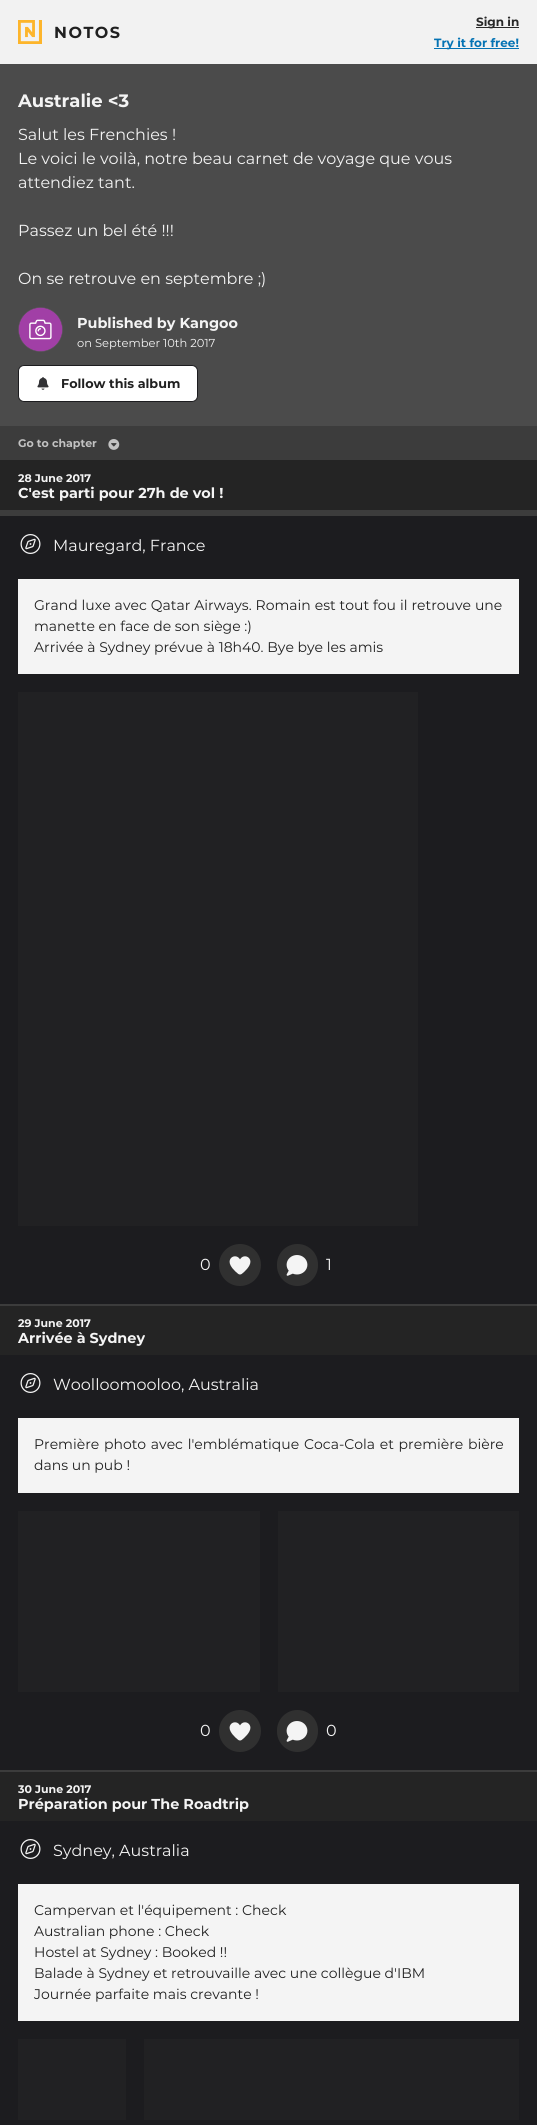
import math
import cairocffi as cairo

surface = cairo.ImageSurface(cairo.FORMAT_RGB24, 537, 2125)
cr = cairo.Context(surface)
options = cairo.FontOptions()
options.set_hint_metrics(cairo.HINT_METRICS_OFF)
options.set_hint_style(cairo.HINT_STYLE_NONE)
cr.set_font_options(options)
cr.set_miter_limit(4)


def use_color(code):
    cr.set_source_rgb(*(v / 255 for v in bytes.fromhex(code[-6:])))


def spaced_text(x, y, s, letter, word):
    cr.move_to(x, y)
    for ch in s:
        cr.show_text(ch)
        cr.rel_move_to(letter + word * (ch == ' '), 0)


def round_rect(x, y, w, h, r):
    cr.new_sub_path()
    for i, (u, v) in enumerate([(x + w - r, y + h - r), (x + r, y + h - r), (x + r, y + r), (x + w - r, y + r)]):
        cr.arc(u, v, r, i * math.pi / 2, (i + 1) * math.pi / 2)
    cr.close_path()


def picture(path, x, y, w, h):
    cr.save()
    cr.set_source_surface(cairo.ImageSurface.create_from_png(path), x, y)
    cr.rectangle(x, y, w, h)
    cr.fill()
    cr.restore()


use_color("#1c1c1f")
cr.paint()
use_color("#f2f2f2")
cr.rectangle(0, 0, 537, 64)
cr.fill()
picture("img1.png", 18, 20, 24, 24)
cr.select_font_face("Montserrat", cairo.FONT_SLANT_NORMAL, cairo.FONT_WEIGHT_BOLD)
cr.set_font_size(16)
use_color("#202020")
spaced_text(54, 38, "NOTOS", 1.5, 0)
use_color("#282828")
cr.rectangle(476, 27, 43, 1)
cr.fill()
cr.set_font_size(12)
cr.move_to(476, 26)
cr.show_text("Sign in")
use_color("#0473b4")
cr.rectangle(434, 48, 85, 1)
cr.fill()
cr.move_to(434, 47)
cr.show_text("Try it for free!")
use_color("#4b4b4b")
cr.rectangle(0, 64, 537, 362)
cr.fill()
cr.set_font_size(18)
use_color("#f4f4f4")
cr.move_to(18, 107)
cr.show_text("Australie <3")
cr.select_font_face("Montserrat")
cr.set_font_size(16)
cr.move_to(18, 140)
cr.show_text("Salut les Frenchies !")
cr.move_to(18, 164)
cr.show_text("Le voici le voilà, notre beau carnet de voyage que vous")
cr.move_to(18, 188)
cr.show_text("attendiez tant.")
cr.move_to(18, 236)
cr.show_text("Passez un bel été !!!")
cr.move_to(18, 284)
cr.show_text("On se retrouve en septembre ;)")
picture("img2.png", 18, 307, 45, 45)
cr.select_font_face("Montserrat", cairo.FONT_SLANT_NORMAL, cairo.FONT_WEIGHT_BOLD)
cr.set_font_size(14.4)
cr.move_to(77, 328)
cr.show_text("Published by Kangoo")
cr.select_font_face("Montserrat")
cr.set_font_size(11.5)
cr.move_to(77, 347)
cr.show_text("on September 10th 2017")
use_color("#ffffff")
round_rect(18.5, 365.5, 179, 36, 5.5)
cr.fill_preserve()
use_color("#1c1c1f")
cr.set_line_width(1)
cr.stroke()
picture("img3.png", 37, 377, 12, 13)
cr.select_font_face("Montserrat", cairo.FONT_SLANT_NORMAL, cairo.FONT_WEIGHT_BOLD)
cr.set_font_size(12.75)
use_color("#202020")
cr.move_to(61, 388)
cr.show_text("Follow this album")
use_color("#242424")
cr.rectangle(0, 460, 537, 50)
cr.fill()
use_color("#3c3c3c")
cr.rectangle(0, 426, 537, 34)
cr.fill()
cr.set_font_size(11)
use_color("#c2c2c2")
cr.move_to(18, 447)
cr.show_text("Go to chapter")
picture("img4.png", 108, 439, 12, 11)
use_color("#f4f4f4")
cr.move_to(18, 482)
cr.show_text("28 June 2017")
cr.set_font_size(14.4)
cr.move_to(18, 498)
cr.show_text("C'est parti pour 27h de vol !")
use_color("#3c3c3c")
cr.rectangle(0, 510, 537, 6)
cr.fill()
picture("img5.png", 20, 534, 21, 20)
cr.select_font_face("Montserrat")
cr.set_font_size(16)
use_color("#f4f4f4")
cr.move_to(53, 551)
cr.show_text("Mauregard, France")
cr.rectangle(18, 579, 501, 95)
cr.fill()
cr.set_font_size(14)
use_color("#202020")
spaced_text(34, 610, "Grand luxe avec Qatar Airways. Romain est tout fou il retrouve une", 0, 0.25)
cr.move_to(34, 631)
cr.show_text("manette en face de son siège :)")
cr.move_to(34, 652)
cr.show_text("Arrivée à Sydney prévue à 18h40. Bye bye les amis")
use_color("#212123")
cr.rectangle(18, 692, 400, 534)
cr.fill()
cr.set_font_size(16)
use_color("#f4f4f4")
cr.move_to(200, 1270)
cr.show_text("0")
use_color("#303030")
cr.new_path()
cr.arc(240, 1265, 21, 0, 2 * math.pi)
cr.fill()
picture("img6.png", 229, 1256, 22, 19)
round_rect(277, 1244, 41, 42, 20.5)
cr.fill()
picture("img7.png", 286, 1255, 22, 21)
use_color("#f4f4f4")
cr.move_to(326, 1270)
cr.show_text("1")
use_color("#242424")
cr.rectangle(0, 1306, 537, 49)
cr.fill()
use_color("#3c3c3c")
cr.rectangle(0, 1304, 537, 2)
cr.fill()
cr.select_font_face("Montserrat", cairo.FONT_SLANT_NORMAL, cairo.FONT_WEIGHT_BOLD)
cr.set_font_size(11)
use_color("#f4f4f4")
cr.move_to(18, 1327)
cr.show_text("29 June 2017")
cr.set_font_size(14.4)
cr.move_to(18, 1343)
cr.show_text("Arrivée à Sydney")
picture("img5.png", 20, 1373, 21, 20)
cr.select_font_face("Montserrat")
cr.set_font_size(16)
cr.move_to(53, 1390)
cr.show_text("Woolloomooloo, Australia")
cr.rectangle(18, 1418, 501, 75)
cr.fill()
cr.set_font_size(14)
use_color("#202020")
spaced_text(34, 1449, "Première photo avec l'emblématique Coca-Cola et première bière", 0, 1)
cr.move_to(34, 1470)
cr.show_text("dans un pub !")
use_color("#212123")
cr.rectangle(18, 1511, 242, 181)
cr.fill()
cr.rectangle(278, 1511, 241, 181)
cr.fill()
cr.set_font_size(16)
use_color("#f4f4f4")
cr.move_to(200, 1736)
cr.show_text("0")
use_color("#303030")
cr.new_path()
cr.arc(240, 1731, 21, 0, 2 * math.pi)
cr.fill()
picture("img6.png", 229, 1722, 22, 19)
round_rect(277, 1710, 41, 42, 20.5)
cr.fill()
picture("img7.png", 286, 1721, 22, 21)
use_color("#f4f4f4")
cr.move_to(326, 1736)
cr.show_text("0")
use_color("#242424")
cr.rectangle(0, 1772, 537, 49)
cr.fill()
use_color("#3c3c3c")
cr.rectangle(0, 1770, 537, 2)
cr.fill()
cr.select_font_face("Montserrat", cairo.FONT_SLANT_NORMAL, cairo.FONT_WEIGHT_BOLD)
cr.set_font_size(11)
use_color("#f4f4f4")
cr.move_to(18, 1793)
cr.show_text("30 June 2017")
cr.set_font_size(14.4)
cr.move_to(18, 1809)
cr.show_text("Préparation pour The Roadtrip")
picture("img5.png", 20, 1839, 21, 20)
cr.select_font_face("Montserrat")
cr.set_font_size(16)
cr.move_to(53, 1856)
cr.show_text("Sydney, Australia")
cr.rectangle(18, 1884, 501, 137)
cr.fill()
cr.set_font_size(14)
use_color("#202020")
cr.move_to(34, 1915)
cr.show_text("Campervan et l'équipement : Check")
cr.move_to(34, 1936)
cr.show_text("Australian phone : Check")
cr.move_to(34, 1957)
cr.show_text("Hostel at Sydney : Booked !!")
cr.move_to(34, 1978)
cr.show_text("Balade à Sydney et retrouvaille avec une collègue d'IBM")
cr.move_to(34, 1999)
cr.show_text("Journée parfaite mais crevante !")
use_color("#212123")
cr.rectangle(18, 2039, 108, 81)
cr.fill()
cr.rectangle(144, 2039, 375, 81)
cr.fill()
surface.write_to_png("result.png")
